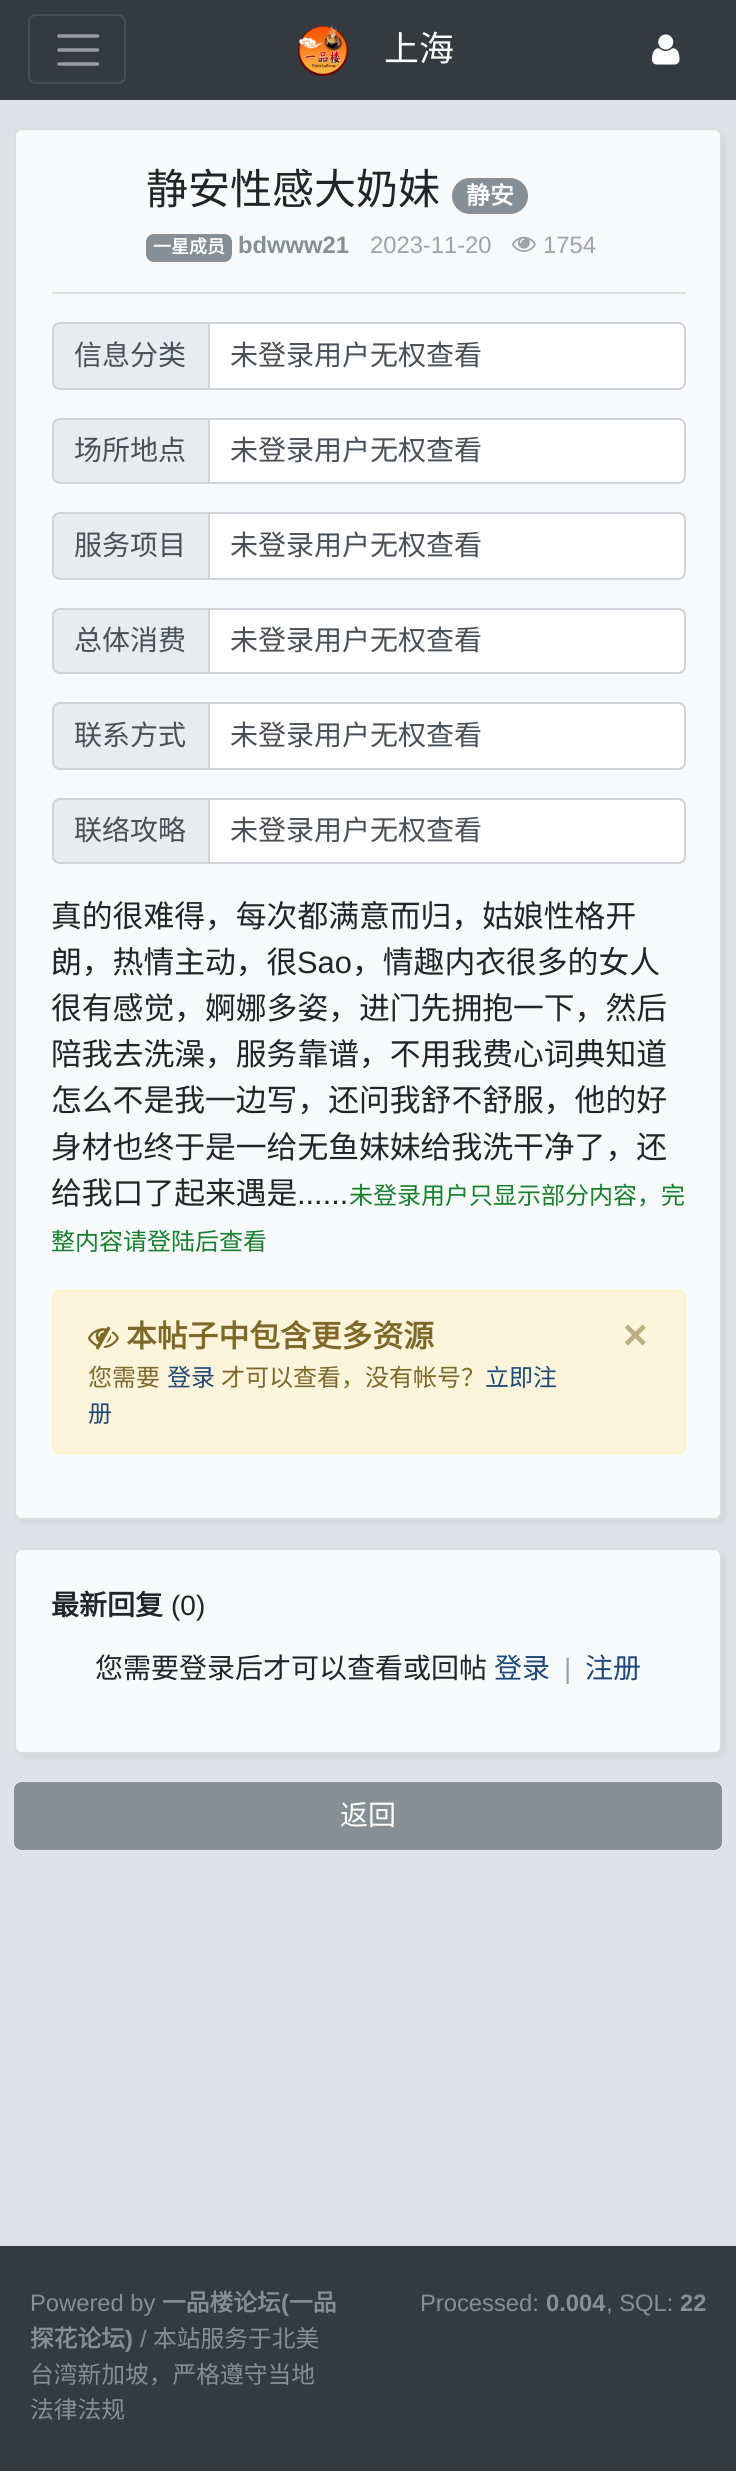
import math
import cairocffi as cairo

surface = cairo.ImageSurface(cairo.FORMAT_RGB24, 736, 2471)
cr = cairo.Context(surface)
options = cairo.FontOptions()
options.set_hint_metrics(cairo.HINT_METRICS_OFF)
options.set_hint_style(cairo.HINT_STYLE_NONE)
cr.set_font_options(options)
cr.set_miter_limit(4)


def use_color(code):
    cr.set_source_rgb(*(v / 255 for v in bytes.fromhex(code[-6:])))


def round_rect(x, y, w, h, r):
    cr.new_sub_path()
    for i, (u, v) in enumerate([(x + w - r, y + h - r), (x + r, y + h - r), (x + r, y + r), (x + w - r, y + r)]):
        cr.arc(u, v, r, i * math.pi / 2, (i + 1) * math.pi / 2)
    cr.close_path()


def shadow(x, y, w, h, r, blur, alpha):
    cr.push_group_with_content(cairo.CONTENT_ALPHA)
    cr.set_operator(cairo.OPERATOR_SOURCE)
    for i in range(15, -16, -2):
        e = blur * i / 6
        if min(w, h) + 2 * e > 0:
            cr.set_source_rgba(0, 0, 0, alpha * math.erfc((i - 1) / 8.5) / 2)
            round_rect(x - e, y - e, w + 2 * e, h + 2 * e, max(0, min(r + e + blur * .6, min(w, h) / 2 + e)))
            cr.fill()
    cr.mask(cr.pop_group())


def picture(path, x, y, w, h):
    cr.save()
    cr.set_source_surface(cairo.ImageSurface.create_from_png(path), x, y)
    cr.rectangle(x, y, w, h)
    cr.fill()
    cr.restore()


use_color("#dee2e6")
cr.paint()
use_color("#343a40")
cr.rectangle(0, 0, 736, 100)
cr.fill()
round_rect(29, 15, 96, 68, 7)
use_color("#484e53")
cr.stroke()
cr.new_path()
cr.move_to(59, 36)
cr.line_to(97.5, 36)
cr.move_to(59, 50)
cr.line_to(97.5, 50)
cr.move_to(59, 64)
cr.line_to(97.5, 64)
use_color("#9a9da0")
cr.set_line_width(3.5)
cr.set_line_cap(cairo.LINE_CAP_ROUND)
cr.stroke()
picture("img1.png", 298, 26, 50, 50)
cr.select_font_face("Noto Sans CJK SC")
cr.set_font_size(35)
use_color("#ffffff")
cr.move_to(384, 61)
cr.show_text("上海")
picture("img2.png", 652, 34, 28, 31)
use_color("#adb5bd")
shadow(18, 132, 708, 1392, 8, 3, 0.25)
use_color("#f8f9fa")
round_rect(14, 128, 708, 1392, 8)
cr.fill()
round_rect(15, 129, 706, 1390, 7)
cr.set_source_rgba(0, 0, 0, 0.12)
cr.set_line_width(2)
cr.set_line_cap(cairo.LINE_CAP_BUTT)
cr.stroke()
cr.set_font_size(42)
use_color("#212529")
cr.move_to(146, 204)
cr.show_text("静安性感大奶妹")
use_color("#868e96")
round_rect(452, 178, 76, 36, 18)
cr.fill()
cr.select_font_face("Noto Sans CJK SC", cairo.FONT_SLANT_NORMAL, cairo.FONT_WEIGHT_BOLD)
cr.set_font_size(24)
use_color("#ffffff")
cr.move_to(466, 204)
cr.show_text("静安")
use_color("#868e96")
round_rect(146, 234, 86, 28, 8)
cr.fill()
cr.set_font_size(18)
use_color("#ffffff")
cr.move_to(153, 253)
cr.show_text("一星成员")
cr.select_font_face("Liberation Sans", cairo.FONT_SLANT_NORMAL, cairo.FONT_WEIGHT_BOLD)
cr.set_font_size(23.75)
use_color("#868e96")
cr.move_to(238, 253)
cr.show_text("bdwww21")
cr.select_font_face("Liberation Sans")
use_color("#9da3aa")
cr.move_to(370, 253)
cr.show_text("2023-11-20")
picture("img3.png", 512, 236, 24, 16)
cr.move_to(543, 253)
cr.show_text("1754")
use_color("#dfe0e1")
cr.rectangle(52, 292, 634, 2)
cr.fill()
use_color("#e9ecef")
cr.new_path()
cr.move_to(60, 323)
cr.line_to(209, 323)
cr.line_to(209, 389)
cr.line_to(60, 389)
cr.curve_to(56, 389, 53, 386, 53, 382)
cr.line_to(53, 330)
cr.curve_to(53, 326, 56, 323, 60, 323)
cr.close_path()
cr.fill_preserve()
use_color("#ced4da")
cr.stroke()
cr.select_font_face("Noto Sans CJK SC")
cr.set_font_size(28)
use_color("#495057")
cr.move_to(74, 365)
cr.show_text("信息分类")
use_color("#ffffff")
cr.new_path()
cr.move_to(210, 324)
cr.line_to(679, 324)
cr.curve_to(682, 324, 684, 326, 684, 329)
cr.line_to(684, 383)
cr.curve_to(684, 386, 682, 388, 679, 388)
cr.line_to(210, 388)
cr.close_path()
cr.fill()
cr.new_path()
cr.move_to(209, 323)
cr.line_to(678, 323)
cr.curve_to(682, 323, 685, 326, 685, 330)
cr.line_to(685, 382)
cr.curve_to(685, 386, 682, 389, 678, 389)
cr.line_to(209, 389)
cr.close_path()
use_color("#ced4da")
cr.stroke()
use_color("#495057")
cr.move_to(230, 365)
cr.show_text("未登录用户无权查看")
use_color("#e9ecef")
cr.new_path()
cr.move_to(60, 419)
cr.line_to(209, 419)
cr.line_to(209, 483)
cr.line_to(60, 483)
cr.curve_to(56, 483, 53, 480, 53, 476)
cr.line_to(53, 426)
cr.curve_to(53, 422, 56, 419, 60, 419)
cr.close_path()
cr.fill_preserve()
use_color("#ced4da")
cr.stroke()
use_color("#495057")
cr.move_to(74, 460)
cr.show_text("场所地点")
use_color("#ffffff")
cr.new_path()
cr.move_to(210, 420)
cr.line_to(679, 420)
cr.curve_to(682, 420, 684, 422, 684, 425)
cr.line_to(684, 477)
cr.curve_to(684, 480, 682, 482, 679, 482)
cr.line_to(210, 482)
cr.close_path()
cr.fill()
cr.new_path()
cr.move_to(209, 419)
cr.line_to(678, 419)
cr.curve_to(682, 419, 685, 422, 685, 426)
cr.line_to(685, 476)
cr.curve_to(685, 480, 682, 483, 678, 483)
cr.line_to(209, 483)
cr.close_path()
use_color("#ced4da")
cr.stroke()
use_color("#495057")
cr.move_to(230, 460)
cr.show_text("未登录用户无权查看")
use_color("#e9ecef")
cr.new_path()
cr.move_to(60, 513)
cr.line_to(209, 513)
cr.line_to(209, 579)
cr.line_to(60, 579)
cr.curve_to(56, 579, 53, 576, 53, 572)
cr.line_to(53, 520)
cr.curve_to(53, 516, 56, 513, 60, 513)
cr.close_path()
cr.fill_preserve()
use_color("#ced4da")
cr.stroke()
use_color("#495057")
cr.move_to(74, 555)
cr.show_text("服务项目")
use_color("#ffffff")
cr.new_path()
cr.move_to(210, 514)
cr.line_to(679, 514)
cr.curve_to(682, 514, 684, 516, 684, 519)
cr.line_to(684, 573)
cr.curve_to(684, 576, 682, 578, 679, 578)
cr.line_to(210, 578)
cr.close_path()
cr.fill()
cr.new_path()
cr.move_to(209, 513)
cr.line_to(678, 513)
cr.curve_to(682, 513, 685, 516, 685, 520)
cr.line_to(685, 572)
cr.curve_to(685, 576, 682, 579, 678, 579)
cr.line_to(209, 579)
cr.close_path()
use_color("#ced4da")
cr.stroke()
use_color("#495057")
cr.move_to(230, 555)
cr.show_text("未登录用户无权查看")
use_color("#e9ecef")
cr.new_path()
cr.move_to(60, 609)
cr.line_to(209, 609)
cr.line_to(209, 673)
cr.line_to(60, 673)
cr.curve_to(56, 673, 53, 670, 53, 666)
cr.line_to(53, 616)
cr.curve_to(53, 612, 56, 609, 60, 609)
cr.close_path()
cr.fill_preserve()
use_color("#ced4da")
cr.stroke()
use_color("#495057")
cr.move_to(74, 650)
cr.show_text("总体消费")
use_color("#ffffff")
cr.new_path()
cr.move_to(210, 610)
cr.line_to(679, 610)
cr.curve_to(682, 610, 684, 612, 684, 615)
cr.line_to(684, 667)
cr.curve_to(684, 670, 682, 672, 679, 672)
cr.line_to(210, 672)
cr.close_path()
cr.fill()
cr.new_path()
cr.move_to(209, 609)
cr.line_to(678, 609)
cr.curve_to(682, 609, 685, 612, 685, 616)
cr.line_to(685, 666)
cr.curve_to(685, 670, 682, 673, 678, 673)
cr.line_to(209, 673)
cr.close_path()
use_color("#ced4da")
cr.stroke()
use_color("#495057")
cr.move_to(230, 650)
cr.show_text("未登录用户无权查看")
use_color("#e9ecef")
cr.new_path()
cr.move_to(60, 703)
cr.line_to(209, 703)
cr.line_to(209, 769)
cr.line_to(60, 769)
cr.curve_to(56, 769, 53, 766, 53, 762)
cr.line_to(53, 710)
cr.curve_to(53, 706, 56, 703, 60, 703)
cr.close_path()
cr.fill_preserve()
use_color("#ced4da")
cr.stroke()
use_color("#495057")
cr.move_to(74, 745)
cr.show_text("联系方式")
use_color("#ffffff")
cr.new_path()
cr.move_to(210, 704)
cr.line_to(679, 704)
cr.curve_to(682, 704, 684, 706, 684, 709)
cr.line_to(684, 763)
cr.curve_to(684, 766, 682, 768, 679, 768)
cr.line_to(210, 768)
cr.close_path()
cr.fill()
cr.new_path()
cr.move_to(209, 703)
cr.line_to(678, 703)
cr.curve_to(682, 703, 685, 706, 685, 710)
cr.line_to(685, 762)
cr.curve_to(685, 766, 682, 769, 678, 769)
cr.line_to(209, 769)
cr.close_path()
use_color("#ced4da")
cr.stroke()
use_color("#495057")
cr.move_to(230, 745)
cr.show_text("未登录用户无权查看")
use_color("#e9ecef")
cr.new_path()
cr.move_to(60, 799)
cr.line_to(209, 799)
cr.line_to(209, 863)
cr.line_to(60, 863)
cr.curve_to(56, 863, 53, 860, 53, 856)
cr.line_to(53, 806)
cr.curve_to(53, 802, 56, 799, 60, 799)
cr.close_path()
cr.fill_preserve()
use_color("#ced4da")
cr.stroke()
use_color("#495057")
cr.move_to(74, 840)
cr.show_text("联络攻略")
use_color("#ffffff")
cr.new_path()
cr.move_to(210, 800)
cr.line_to(679, 800)
cr.curve_to(682, 800, 684, 802, 684, 805)
cr.line_to(684, 857)
cr.curve_to(684, 860, 682, 862, 679, 862)
cr.line_to(210, 862)
cr.close_path()
cr.fill()
cr.new_path()
cr.move_to(209, 799)
cr.line_to(678, 799)
cr.curve_to(682, 799, 685, 802, 685, 806)
cr.line_to(685, 856)
cr.curve_to(685, 860, 682, 863, 678, 863)
cr.line_to(209, 863)
cr.close_path()
use_color("#ced4da")
cr.stroke()
use_color("#495057")
cr.move_to(230, 840)
cr.show_text("未登录用户无权查看")
cr.set_font_size(30.8)
use_color("#212529")
cr.move_to(51, 927)
cr.show_text("真的很难得，每次都满意而归，姑娘性格开")
cr.move_to(51, 973)
cr.show_text("朗，热情主动，很")
cr.select_font_face("Liberation Sans")
cr.move_to(297, 973)
cr.show_text("Sao")
cr.select_font_face("Noto Sans CJK SC")
cr.move_to(352, 973)
cr.show_text("，情趣内衣很多的女人")
cr.move_to(51, 1019)
cr.show_text("很有感觉，婀娜多姿，进门先拥抱一下，然后")
cr.move_to(51, 1065)
cr.show_text("陪我去洗澡，服务靠谱，不用我费心词典知道")
cr.move_to(51, 1111)
cr.show_text("怎么不是我一边写，还问我舒不舒服，他的好")
cr.move_to(51, 1158)
cr.show_text("身材也终于是一给无鱼妹妹给我洗干净了，还")
cr.move_to(51, 1204)
cr.show_text("给我口了起来遇是")
cr.select_font_face("Liberation Sans")
cr.move_to(297, 1204)
cr.show_text("......")
cr.select_font_face("Noto Sans CJK SC")
cr.set_font_size(24)
use_color("#177f2e")
cr.move_to(349, 1204)
cr.show_text("未登录用户只显示部分内容，完")
cr.move_to(51, 1250)
cr.show_text("整内容请登陆后查看")
use_color("#fcf4db")
round_rect(53, 1291, 632, 162, 7)
cr.fill_preserve()
use_color("#fbf0cd")
cr.stroke()
picture("img4.png", 88, 1326, 31, 24)
cr.select_font_face("Noto Sans CJK SC", cairo.FONT_SLANT_NORMAL, cairo.FONT_WEIGHT_BOLD)
cr.set_font_size(30.8)
use_color("#7d6828")
cr.move_to(126, 1347)
cr.show_text("本帖子中包含更多资源")
cr.select_font_face("Liberation Sans", cairo.FONT_SLANT_NORMAL, cairo.FONT_WEIGHT_BOLD)
cr.set_font_size(42)
use_color("#bdae82")
cr.move_to(623, 1349)
cr.show_text("×")
cr.select_font_face("Noto Sans CJK SC")
cr.set_font_size(24)
use_color("#7d6828")
cr.move_to(88, 1386)
cr.show_text("您需要")
use_color("#1f4977")
cr.move_to(167, 1386)
cr.show_text("登录")
use_color("#7d6828")
cr.move_to(221, 1386)
cr.show_text("才可以查看，没有帐号？")
use_color("#1f4977")
cr.move_to(485, 1386)
cr.show_text("立即注")
cr.move_to(88, 1422)
cr.show_text("册")
use_color("#adb5bd")
shadow(18, 1552, 708, 206, 8, 3, 0.25)
use_color("#f8f9fa")
round_rect(14, 1548, 708, 206, 8)
cr.fill()
round_rect(15, 1549, 706, 204, 7)
cr.set_source_rgba(0, 0, 0, 0.12)
cr.stroke()
cr.select_font_face("Noto Sans CJK SC", cairo.FONT_SLANT_NORMAL, cairo.FONT_WEIGHT_BOLD)
cr.set_font_size(28)
use_color("#212529")
cr.move_to(51, 1615)
cr.show_text("最新回复")
cr.select_font_face("Liberation Sans")
cr.move_to(171, 1615)
cr.show_text("(0)")
cr.select_font_face("Noto Sans CJK SC")
cr.move_to(95, 1678)
cr.show_text("您需要登录后才可以查看或回帖")
use_color("#1f4977")
cr.move_to(494, 1678)
cr.show_text("登录")
cr.select_font_face("Liberation Sans")
use_color("#9da3aa")
cr.move_to(564, 1678)
cr.show_text("|")
cr.select_font_face("Noto Sans CJK SC")
use_color("#1f4977")
cr.move_to(585, 1678)
cr.show_text("注册")
use_color("#868e96")
round_rect(15, 1783, 706, 66, 7)
cr.fill_preserve()
cr.stroke()
use_color("#ffffff")
cr.move_to(340, 1825)
cr.show_text("返回")
use_color("#343a40")
cr.rectangle(0, 2246, 736, 225)
cr.fill()
cr.select_font_face("Liberation Sans")
cr.set_font_size(23.75)
use_color("#868e96")
cr.move_to(30, 2311)
cr.show_text("Powered by")
cr.select_font_face("Noto Sans CJK SC", cairo.FONT_SLANT_NORMAL, cairo.FONT_WEIGHT_BOLD)
cr.move_to(162, 2311)
cr.show_text("一品楼论坛")
cr.select_font_face("Liberation Sans", cairo.FONT_SLANT_NORMAL, cairo.FONT_WEIGHT_BOLD)
cr.move_to(281, 2311)
cr.show_text("(")
cr.select_font_face("Noto Sans CJK SC", cairo.FONT_SLANT_NORMAL, cairo.FONT_WEIGHT_BOLD)
cr.move_to(289, 2311)
cr.show_text("一品")
cr.move_to(30, 2347)
cr.show_text("探花论坛")
cr.select_font_face("Liberation Sans", cairo.FONT_SLANT_NORMAL, cairo.FONT_WEIGHT_BOLD)
cr.move_to(125, 2347)
cr.show_text(")")
cr.select_font_face("Liberation Sans")
cr.move_to(140, 2347)
cr.show_text("/")
cr.select_font_face("Noto Sans CJK SC")
cr.move_to(153, 2347)
cr.show_text("本站服务于北美")
cr.move_to(30, 2383)
cr.show_text("台湾新加坡，严格遵守当地")
cr.move_to(30, 2418)
cr.show_text("法律法规")
cr.select_font_face("Liberation Sans")
cr.move_to(420, 2311)
cr.show_text("Processed:")
cr.select_font_face("Liberation Sans", cairo.FONT_SLANT_NORMAL, cairo.FONT_WEIGHT_BOLD)
cr.move_to(546, 2311)
cr.show_text("0.004")
cr.select_font_face("Liberation Sans")
cr.move_to(606, 2311)
cr.show_text(", SQL:")
cr.select_font_face("Liberation Sans", cairo.FONT_SLANT_NORMAL, cairo.FONT_WEIGHT_BOLD)
cr.move_to(680, 2311)
cr.show_text("22")
surface.write_to_png("result.png")
